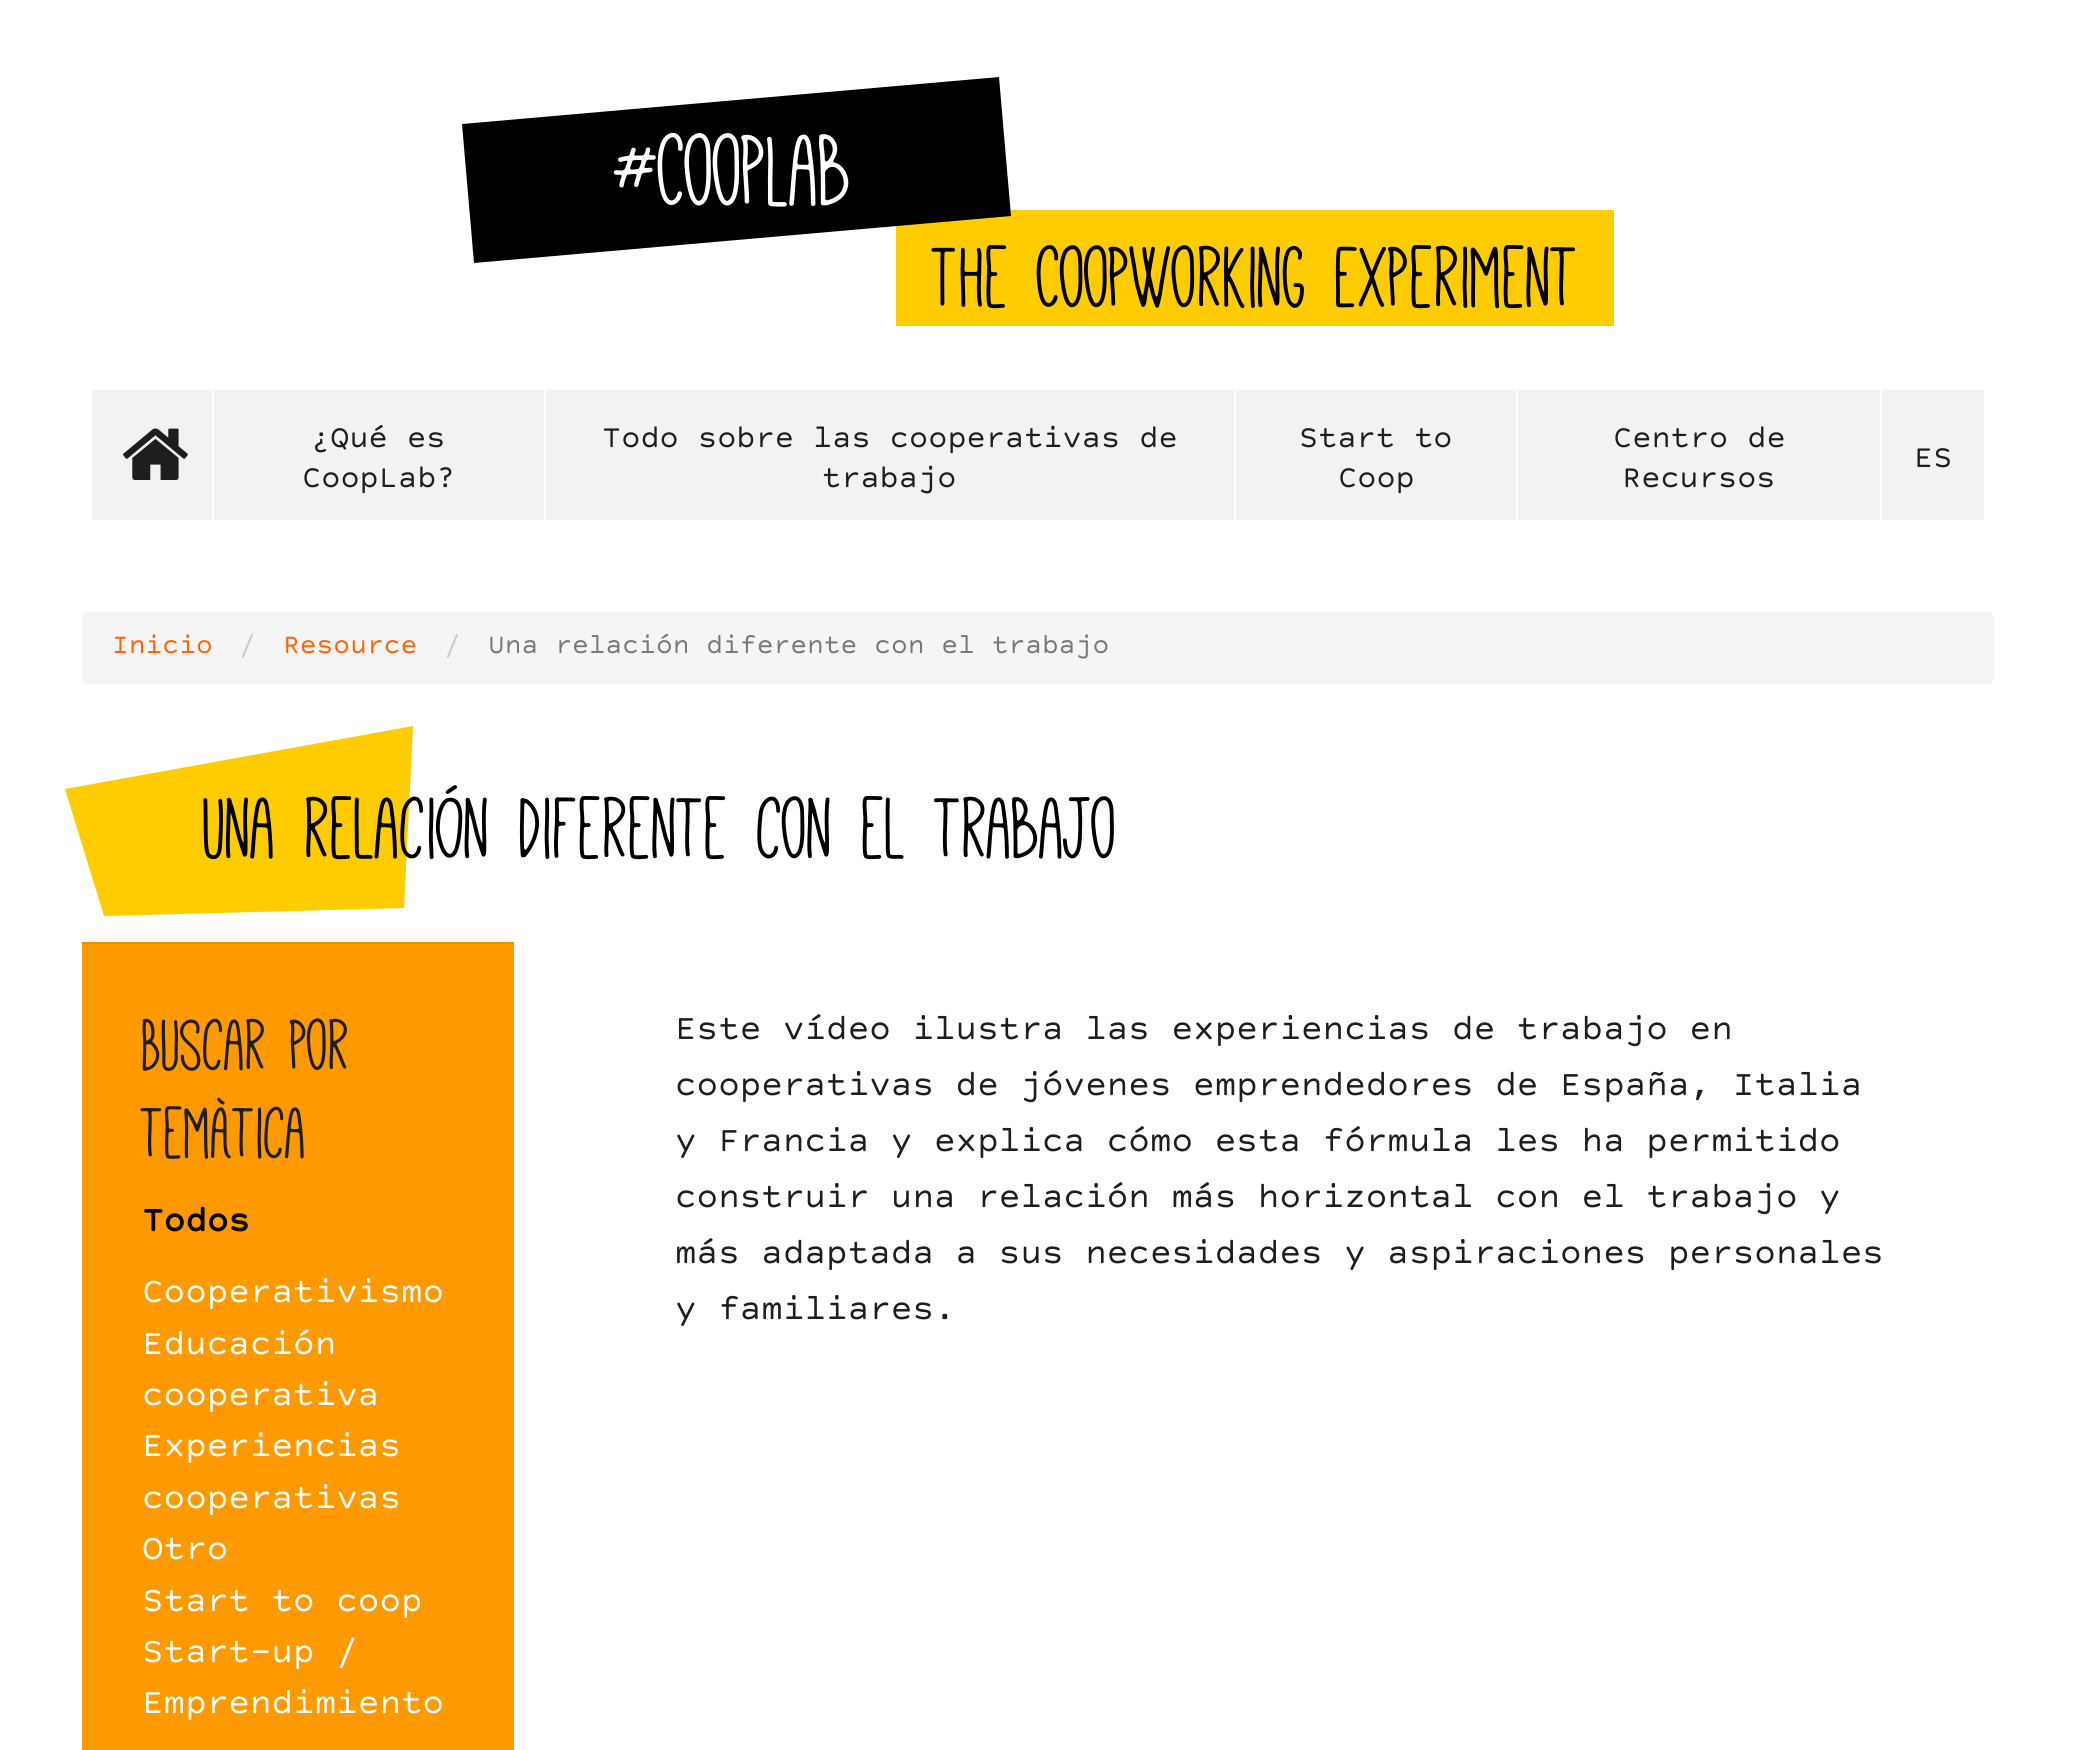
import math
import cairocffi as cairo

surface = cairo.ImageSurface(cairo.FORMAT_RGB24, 2076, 1750)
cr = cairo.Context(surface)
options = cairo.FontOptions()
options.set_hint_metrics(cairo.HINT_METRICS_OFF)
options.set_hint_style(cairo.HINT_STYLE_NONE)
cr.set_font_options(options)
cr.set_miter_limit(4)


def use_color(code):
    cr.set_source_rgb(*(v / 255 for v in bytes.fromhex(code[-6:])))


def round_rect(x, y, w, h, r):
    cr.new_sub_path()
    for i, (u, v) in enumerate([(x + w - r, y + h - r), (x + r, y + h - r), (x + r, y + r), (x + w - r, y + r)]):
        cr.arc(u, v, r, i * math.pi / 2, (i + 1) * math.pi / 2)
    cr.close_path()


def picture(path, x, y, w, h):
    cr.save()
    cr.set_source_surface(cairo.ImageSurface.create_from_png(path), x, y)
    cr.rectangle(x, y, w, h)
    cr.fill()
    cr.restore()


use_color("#ffffff")
cr.paint()
use_color("#ffcc00")
cr.rectangle(896, 210, 718, 116)
cr.fill()
use_color("#000000")
cr.new_path()
cr.move_to(462, 124)
cr.line_to(999, 77)
cr.line_to(1011, 216)
cr.line_to(474, 263)
cr.close_path()
cr.fill()
cr.select_font_face("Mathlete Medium")
cr.set_font_size(112)
use_color("#ffffff")
cr.move_to(617, 204)
cr.show_text("#CoopLab")
cr.set_font_size(96)
use_color("#000000")
cr.move_to(933, 306)
cr.show_text("The CoopWorking Experiment")
use_color("#f2f2f2")
cr.rectangle(92, 390, 1892, 130)
cr.fill()
picture("img1.png", 123, 428, 65, 52)
use_color("#ffffff")
cr.rectangle(544, 390, 2, 130)
cr.fill()
cr.rectangle(212, 390, 2, 130)
cr.fill()
cr.select_font_face("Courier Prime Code")
cr.set_font_size(32)
use_color("#1e1e1e")
cr.move_to(311, 447)
cr.show_text("¿Qué es")
cr.move_to(302, 487)
cr.show_text("CoopLab?")
use_color("#ffffff")
cr.rectangle(1234, 390, 2, 130)
cr.fill()
use_color("#1e1e1e")
cr.move_to(602, 447)
cr.show_text("Todo sobre las cooperativas de")
cr.move_to(822, 487)
cr.show_text("trabajo")
use_color("#ffffff")
cr.rectangle(1516, 390, 2, 130)
cr.fill()
use_color("#1e1e1e")
cr.move_to(1299, 447)
cr.show_text("Start to")
cr.move_to(1338, 487)
cr.show_text("Coop")
use_color("#ffffff")
cr.rectangle(1880, 390, 2, 130)
cr.fill()
use_color("#1e1e1e")
cr.move_to(1613, 447)
cr.show_text("Centro de")
cr.move_to(1622, 487)
cr.show_text("Recursos")
cr.move_to(1914, 467)
cr.show_text("ES")
use_color("#f5f5f5")
round_rect(82, 612, 1912, 72, 6)
cr.fill()
cr.set_font_size(28)
use_color("#ff6400")
cr.move_to(112, 653)
cr.show_text("Inicio")
use_color("#cccccc")
cr.move_to(239, 653)
cr.show_text("/")
use_color("#ff6400")
cr.move_to(283, 653)
cr.show_text("Resource")
use_color("#cccccc")
cr.move_to(444, 653)
cr.show_text("/")
use_color("#777777")
cr.move_to(488, 653)
cr.show_text("Una relación diferente con el trabajo")
use_color("#ffcc00")
cr.new_path()
cr.move_to(413, 726)
cr.line_to(404, 908)
cr.line_to(104, 916)
cr.line_to(65, 789)
cr.close_path()
cr.fill()
cr.select_font_face("Mathlete Medium")
cr.set_font_size(96)
use_color("#000000")
cr.move_to(202, 857)
cr.show_text("Una relación diferente con el trabajo")
use_color("#ff9900")
cr.rectangle(82, 944, 432, 806)
cr.fill()
use_color("#f29100")
cr.rectangle(82, 942, 432, 2)
cr.fill()
cr.set_font_size(80)
use_color("#1e1e1e")
cr.move_to(142, 1069)
cr.show_text("Buscar por")
cr.move_to(142, 1157)
cr.show_text("temàtica")
cr.select_font_face("Courier Prime Code", cairo.FONT_SLANT_NORMAL, cairo.FONT_WEIGHT_BOLD)
cr.set_font_size(36)
use_color("#000000")
cr.move_to(142, 1231)
cr.show_text("Todos")
cr.select_font_face("Courier Prime Code")
use_color("#ffffff")
cr.move_to(142, 1302)
cr.show_text("Cooperativismo")
cr.move_to(142, 1354)
cr.show_text("Educación")
cr.move_to(142, 1405)
cr.show_text("cooperativa")
cr.move_to(142, 1456)
cr.show_text("Experiencias")
cr.move_to(142, 1508)
cr.show_text("cooperativas")
cr.move_to(142, 1559)
cr.show_text("Otro")
cr.move_to(142, 1611)
cr.show_text("Start to coop")
cr.move_to(142, 1662)
cr.show_text("Start-up /")
cr.move_to(142, 1713)
cr.show_text("Emprendimiento")
use_color("#1e1e1e")
cr.move_to(675, 1039)
cr.show_text("Este vídeo ilustra las experiencias de trabajo en")
cr.move_to(675, 1095)
cr.show_text("cooperativas de jóvenes emprendedores de España, Italia")
cr.move_to(675, 1151)
cr.show_text("y Francia y explica cómo esta fórmula les ha permitido")
cr.move_to(675, 1207)
cr.show_text("construir una relación más horizontal con el trabajo y")
cr.move_to(675, 1263)
cr.show_text("más adaptada a sus necesidades y aspiraciones personales")
cr.move_to(675, 1319)
cr.show_text("y familiares.")
surface.write_to_png("result.png")
